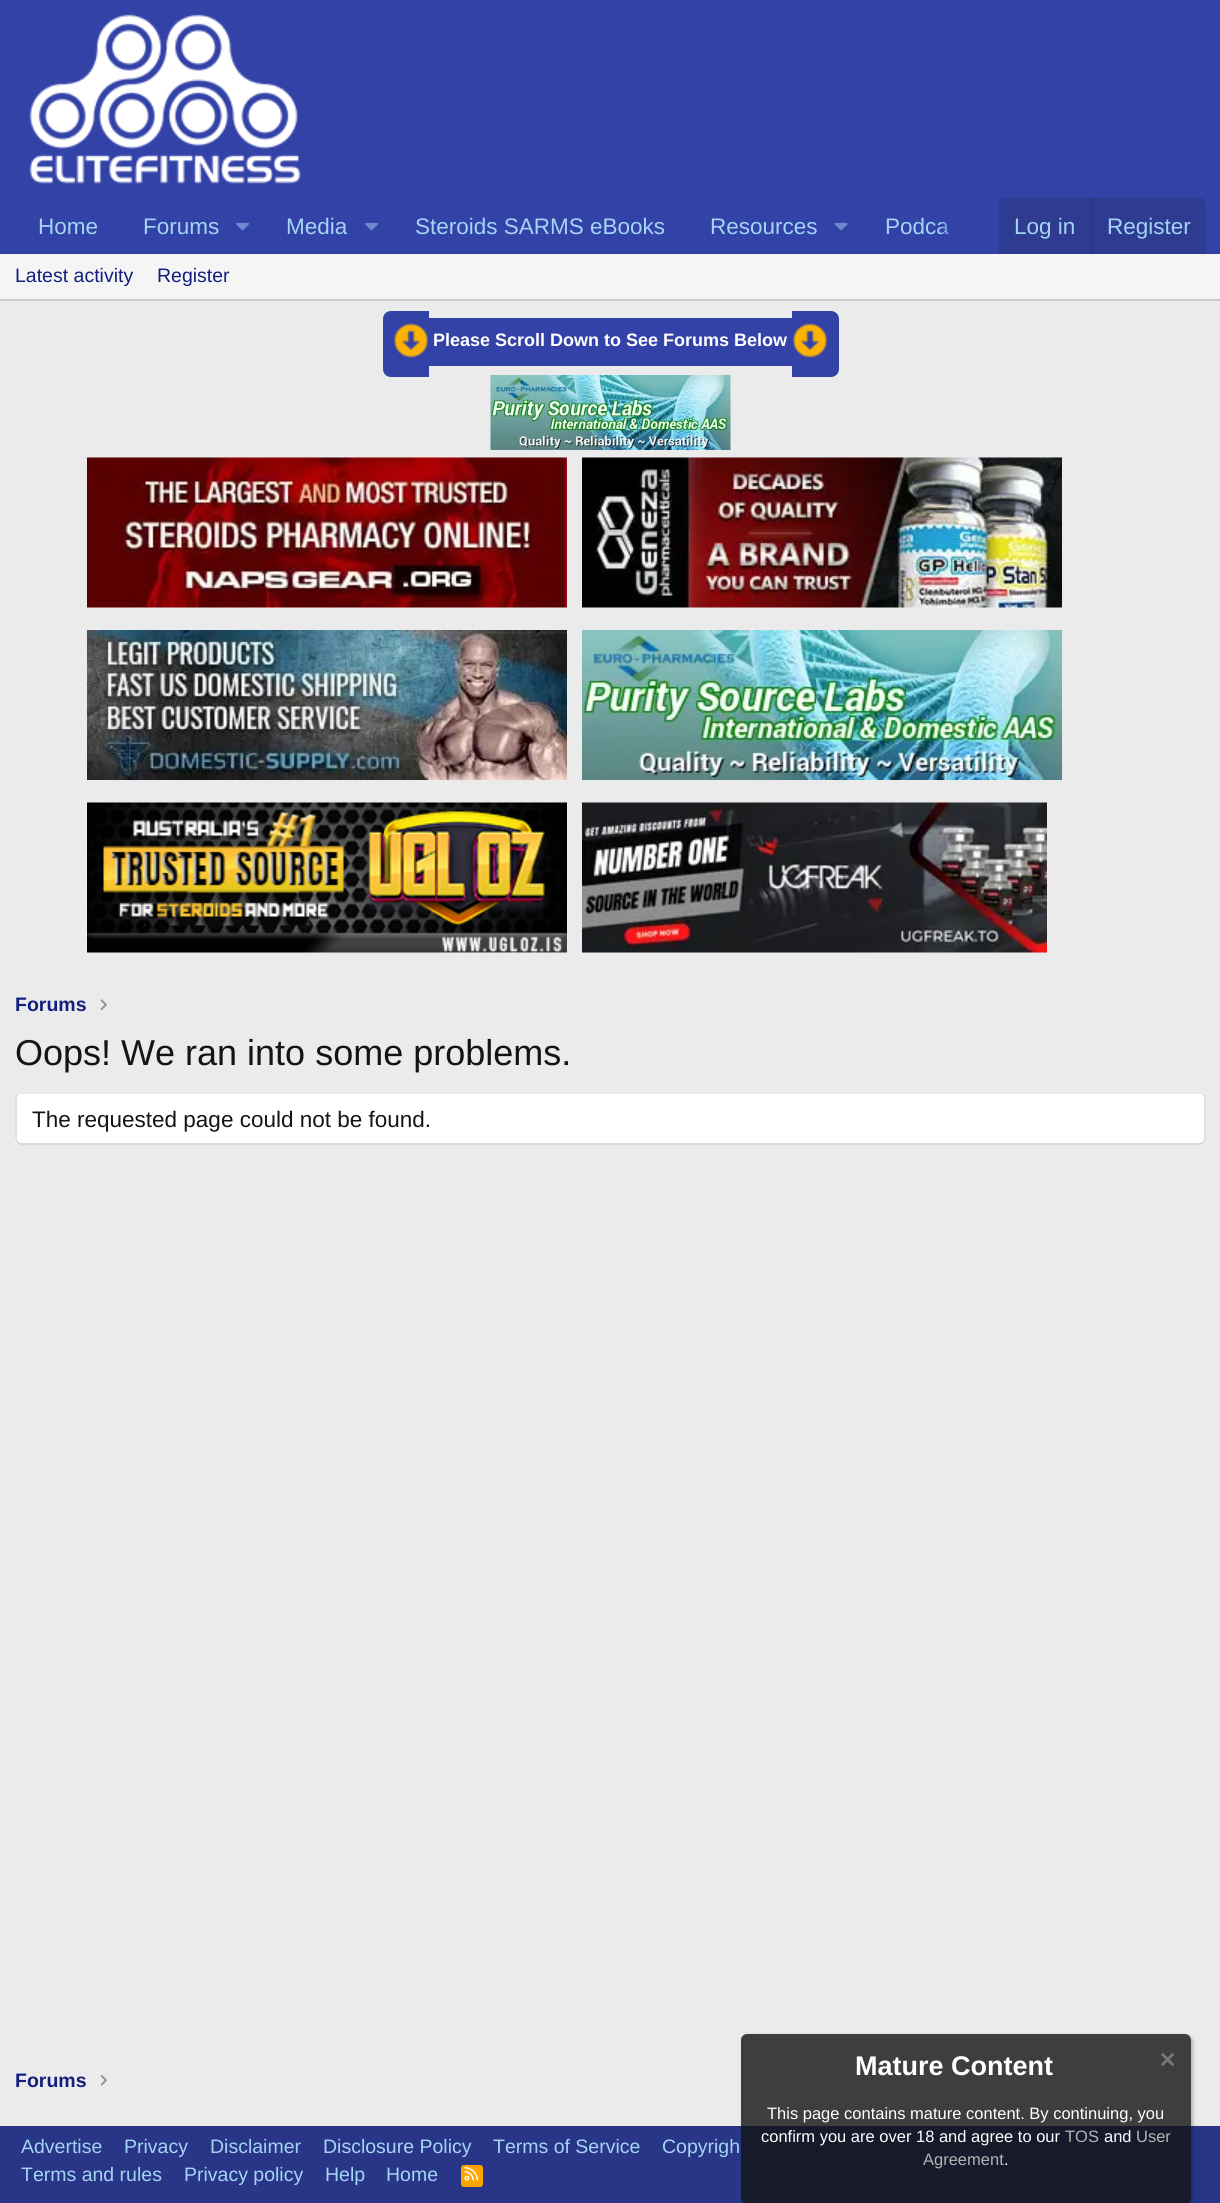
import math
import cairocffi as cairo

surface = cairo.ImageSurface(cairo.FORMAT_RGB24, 1220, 2203)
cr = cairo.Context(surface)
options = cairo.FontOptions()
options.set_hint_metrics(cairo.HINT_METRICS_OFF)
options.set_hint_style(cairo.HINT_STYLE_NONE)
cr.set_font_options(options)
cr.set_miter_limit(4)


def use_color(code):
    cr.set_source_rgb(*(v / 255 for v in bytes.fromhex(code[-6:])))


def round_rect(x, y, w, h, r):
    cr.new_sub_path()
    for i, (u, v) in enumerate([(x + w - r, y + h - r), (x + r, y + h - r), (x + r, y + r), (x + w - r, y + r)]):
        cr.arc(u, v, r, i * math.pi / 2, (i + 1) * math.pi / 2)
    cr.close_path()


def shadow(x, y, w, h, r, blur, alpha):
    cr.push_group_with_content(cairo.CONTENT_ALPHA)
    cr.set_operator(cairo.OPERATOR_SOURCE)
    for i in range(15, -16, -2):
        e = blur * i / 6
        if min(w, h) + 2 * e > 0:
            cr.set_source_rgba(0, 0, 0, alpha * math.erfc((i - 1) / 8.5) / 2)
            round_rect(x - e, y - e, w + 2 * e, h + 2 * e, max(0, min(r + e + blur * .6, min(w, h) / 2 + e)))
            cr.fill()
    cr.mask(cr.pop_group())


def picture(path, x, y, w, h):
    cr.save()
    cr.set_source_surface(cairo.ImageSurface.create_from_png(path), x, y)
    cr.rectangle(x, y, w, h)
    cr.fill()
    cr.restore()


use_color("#ebebeb")
cr.paint()
use_color("#3342a7")
cr.rectangle(0, 0, 1220, 254)
cr.fill()
picture("img1.png", 29, 14, 272, 170)
cr.select_font_face("Liberation Sans")
cr.set_font_size(22.5)
use_color("#a3d4f5")
cr.move_to(38, 234)
cr.show_text("Home")
cr.move_to(143, 234)
cr.show_text("Forums")
picture("img2.png", 236, 222, 13, 9)
cr.move_to(286, 234)
cr.show_text("Media")
picture("img2.png", 365, 222, 13, 9)
cr.move_to(415, 234)
cr.show_text("Steroids SARMS eBooks")
cr.move_to(710, 234)
cr.show_text("Resources")
picture("img3.png", 834, 222, 14, 9)
cr.move_to(885, 234)
cr.show_text("Podca")
gradient = cairo.LinearGradient(939, 226, 999, 226)
gradient.add_color_stop_rgba(0, 0.2, 0.259, 0.655, 0)
gradient.add_color_stop_rgba(0.33, 0.2, 0.259, 0.655, 1)
cr.set_source(gradient)
cr.rectangle(939, 222, 10, 13)
cr.fill()
use_color("#2e3b91")
cr.new_path()
cr.move_to(1005, 198)
cr.line_to(1200, 198)
cr.curve_to(1203.5, 198, 1206, 200.5, 1206, 204)
cr.line_to(1206, 254)
cr.line_to(999, 254)
cr.line_to(999, 204)
cr.curve_to(999, 200.5, 1001.5, 198, 1005, 198)
cr.close_path()
cr.fill()
use_color("#a3d4f5")
cr.move_to(1014, 234)
cr.show_text("Log in")
use_color("#2a357e")
cr.rectangle(1091, 198, 2, 56)
cr.fill()
use_color("#a3d4f5")
cr.move_to(1107, 234)
cr.show_text("Register")
use_color("#f5f5f5")
cr.rectangle(0, 254, 1220, 45)
cr.fill()
use_color("#cccccc")
cr.rectangle(0, 299, 1220, 2)
cr.fill()
cr.set_font_size(19.5)
use_color("#131f7e")
cr.move_to(15, 282)
cr.show_text("Latest activity")
cr.move_to(157, 282)
cr.show_text("Register")
use_color("#3342a7")
cr.new_path()
cr.move_to(391, 311)
cr.line_to(429, 311)
cr.line_to(429, 377)
cr.line_to(391, 377)
cr.curve_to(386.5, 377, 383, 373.5, 383, 369)
cr.line_to(383, 319)
cr.curve_to(383, 314.5, 386.5, 311, 391, 311)
cr.close_path()
cr.fill()
picture("img4.png", 394, 323, 34, 35)
cr.rectangle(429, 318, 363, 48)
cr.fill()
cr.select_font_face("Liberation Sans", cairo.FONT_SLANT_NORMAL, cairo.FONT_WEIGHT_BOLD)
cr.set_font_size(18)
use_color("#ffffff")
cr.move_to(433, 346)
cr.show_text("Please Scroll Down to See Forums Below")
use_color("#3342a7")
cr.new_path()
cr.move_to(792, 311)
cr.line_to(831, 311)
cr.curve_to(835.5, 311, 839, 314.5, 839, 319)
cr.line_to(839, 369)
cr.curve_to(839, 373.5, 835.5, 377, 831, 377)
cr.line_to(792, 377)
cr.close_path()
cr.fill()
picture("img5.png", 793, 323, 34, 35)
picture("img6.png", 490, 375, 241, 75)
picture("img7.png", 87, 457, 480, 151)
picture("img8.png", 582, 457, 480, 151)
picture("img9.png", 87, 630, 480, 150)
picture("img10.png", 582, 630, 480, 150)
picture("img11.png", 87, 802, 480, 151)
picture("img12.png", 582, 802, 465, 151)
cr.set_font_size(19.5)
use_color("#131f7e")
cr.move_to(15, 1011)
cr.show_text("Forums")
picture("img13.png", 101, 999, 6, 12)
cr.select_font_face("Liberation Sans")
cr.set_font_size(36)
use_color("#141414")
cr.move_to(15, 1065)
cr.show_text("Oops! We ran into some problems.")
use_color("#ffffff")
round_rect(15, 1092, 1191, 53, 6)
cr.fill()
cr.new_path()
cr.move_to(17.5, 1094.5)
cr.curve_to(18.5, 1093.5, 19.5, 1093, 21, 1093)
cr.line_to(1200, 1093)
cr.curve_to(1201.5, 1093, 1202.5, 1093.5, 1203.5, 1094.5)
use_color("#e0e0e0")
cr.set_line_width(1.5)
cr.stroke()
cr.new_path()
cr.move_to(1203.5, 1094.5)
cr.curve_to(1204.5, 1095.5, 1205, 1096.5, 1205, 1098)
cr.line_to(1205, 1138.5)
cr.curve_to(1205, 1140, 1204.5, 1141, 1203.5, 1142)
use_color("#d6d6d6")
cr.stroke()
cr.new_path()
cr.move_to(1203.5, 1142)
cr.curve_to(1202.5, 1143, 1201.5, 1144, 1200, 1144)
cr.line_to(21, 1144)
cr.curve_to(19.5, 1144, 18.5, 1143, 17.5, 1142)
use_color("#cccccc")
cr.stroke()
cr.new_path()
cr.move_to(17.5, 1142)
cr.curve_to(16.5, 1141, 16, 1140, 16, 1138.5)
cr.line_to(16, 1098)
cr.curve_to(16, 1096.5, 16.5, 1095.5, 17.5, 1094.5)
use_color("#d6d6d6")
cr.stroke()
cr.set_font_size(22.5)
use_color("#141414")
cr.move_to(32, 1127)
cr.show_text("The requested page could not be found.")
cr.select_font_face("Liberation Sans", cairo.FONT_SLANT_NORMAL, cairo.FONT_WEIGHT_BOLD)
cr.set_font_size(19.5)
use_color("#131f7e")
cr.move_to(15, 2087)
cr.show_text("Forums")
picture("img14.png", 101, 2074, 6, 12)
use_color("#293688")
cr.rectangle(0, 2126, 1220, 77)
cr.fill()
cr.select_font_face("Liberation Sans")
use_color("#a3d4f5")
cr.move_to(21, 2153)
cr.show_text("Advertise")
cr.move_to(124, 2153)
cr.show_text("Privacy")
cr.move_to(210, 2153)
cr.show_text("Disclaimer")
cr.move_to(323, 2153)
cr.show_text("Disclosure Policy")
cr.move_to(493, 2153)
cr.show_text("Terms of Service")
cr.move_to(662, 2153)
cr.show_text("Copyrigh")
cr.move_to(21, 2181)
cr.show_text("Terms and rules")
cr.move_to(184, 2181)
cr.show_text("Privacy policy")
cr.move_to(325, 2181)
cr.show_text("Help")
cr.move_to(386, 2181)
cr.show_text("Home")
use_color("#ffa500")
round_rect(461, 2165, 22, 22, 3)
cr.fill()
picture("img15.png", 464, 2167, 15, 14)
cr.save()
cr.set_fill_rule(cairo.FILL_RULE_EVEN_ODD)
cr.new_path()
cr.move_to(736, 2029)
cr.line_to(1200, 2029)
cr.line_to(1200, 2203)
cr.line_to(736, 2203)
cr.close_path()
cr.move_to(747, 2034)
cr.line_to(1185, 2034)
cr.curve_to(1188.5, 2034, 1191, 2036.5, 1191, 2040)
cr.line_to(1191, 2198)
cr.curve_to(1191, 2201.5, 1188.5, 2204, 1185, 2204)
cr.line_to(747, 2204)
cr.curve_to(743.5, 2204, 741, 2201.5, 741, 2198)
cr.line_to(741, 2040)
cr.curve_to(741, 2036.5, 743.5, 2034, 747, 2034)
cr.close_path()
cr.clip()
use_color("#000000")
shadow(743, 2036, 450, 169, 6, 2, 0.25)
cr.restore()
cr.set_source_rgba(0.078, 0.078, 0.078, 0.8)
round_rect(741, 2034, 450, 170, 6)
cr.fill()
picture("img16.png", 1161, 2053, 13, 13)
cr.select_font_face("Liberation Sans", cairo.FONT_SLANT_NORMAL, cairo.FONT_WEIGHT_BOLD)
cr.set_font_size(27)
use_color("#ffffff")
cr.move_to(855, 2075)
cr.show_text("Mature Content")
cr.select_font_face("Liberation Sans")
cr.set_font_size(16.5)
cr.move_to(767, 2119)
cr.show_text("This page contains mature content. By continuing, you")
cr.move_to(761, 2142)
cr.show_text("confirm you are over 18 and agree to our")
use_color("#b4b4b4")
cr.move_to(1065, 2142)
cr.show_text("TOS")
use_color("#ffffff")
cr.move_to(1104, 2142)
cr.show_text("and")
use_color("#b4b4b4")
cr.move_to(1136, 2142)
cr.show_text("User")
cr.move_to(923, 2165)
cr.show_text("Agreement")
use_color("#ffffff")
cr.move_to(1004, 2165)
cr.show_text(".")
surface.write_to_png("result.png")
